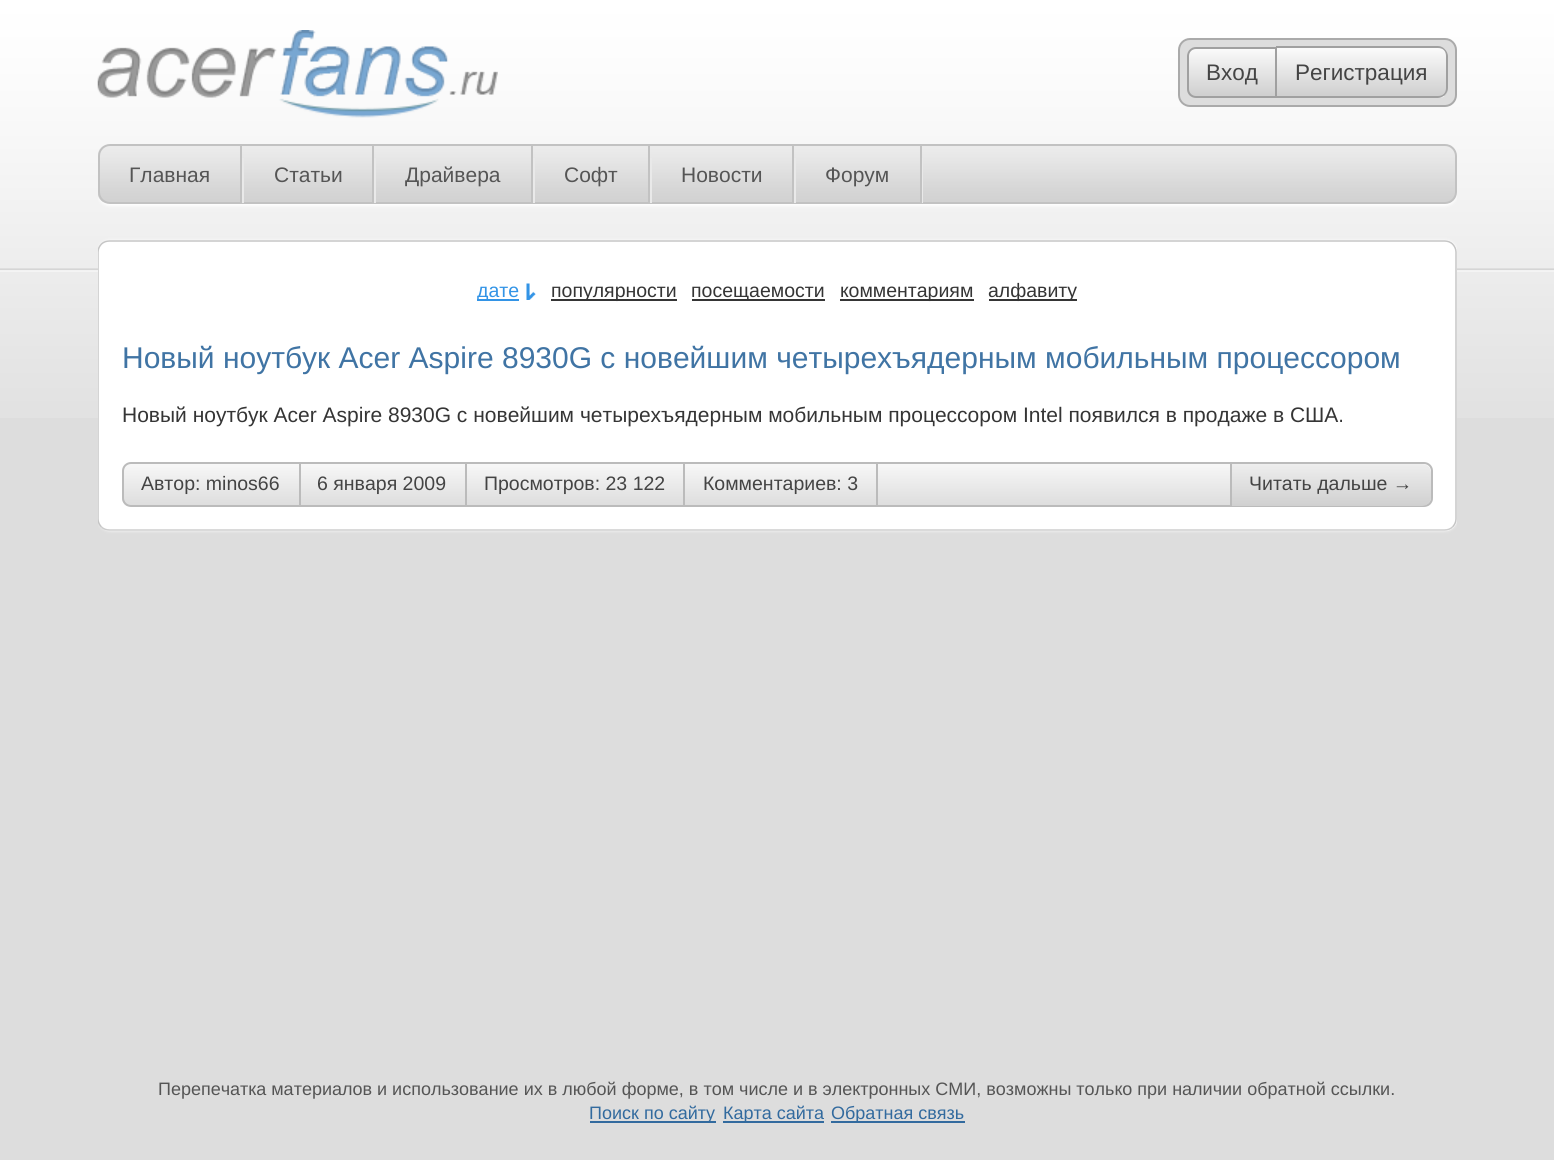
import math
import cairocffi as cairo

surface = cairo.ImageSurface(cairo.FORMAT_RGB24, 1554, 1160)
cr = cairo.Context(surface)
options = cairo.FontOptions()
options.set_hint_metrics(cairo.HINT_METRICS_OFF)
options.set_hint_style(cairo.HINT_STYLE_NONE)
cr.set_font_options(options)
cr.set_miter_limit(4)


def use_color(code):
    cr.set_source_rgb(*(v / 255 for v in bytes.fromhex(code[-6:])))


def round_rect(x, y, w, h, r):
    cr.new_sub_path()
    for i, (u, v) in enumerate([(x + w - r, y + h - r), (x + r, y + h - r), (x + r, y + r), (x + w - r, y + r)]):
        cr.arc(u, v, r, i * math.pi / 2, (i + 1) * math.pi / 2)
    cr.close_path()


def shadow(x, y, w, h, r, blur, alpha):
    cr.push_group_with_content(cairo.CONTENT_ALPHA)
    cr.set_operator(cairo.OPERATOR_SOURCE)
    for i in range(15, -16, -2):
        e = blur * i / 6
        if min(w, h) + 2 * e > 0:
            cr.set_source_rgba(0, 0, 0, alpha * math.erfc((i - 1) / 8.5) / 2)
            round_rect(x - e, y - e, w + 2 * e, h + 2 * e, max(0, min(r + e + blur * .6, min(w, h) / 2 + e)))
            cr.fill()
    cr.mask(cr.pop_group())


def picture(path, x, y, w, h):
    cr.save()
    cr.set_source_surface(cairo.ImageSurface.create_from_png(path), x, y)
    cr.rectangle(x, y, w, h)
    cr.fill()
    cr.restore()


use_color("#dddddd")
cr.paint()
picture("img1.png", 0, 0, 1554, 418)
picture("img2.png", 97, 30, 401, 88)
use_color("#dddddd")
round_rect(1179, 39, 277, 67, 11)
cr.fill_preserve()
use_color("#aaaaaa")
cr.stroke()
cr.save()
cr.new_path()
cr.move_to(1196, 47)
cr.line_to(1277, 47)
cr.line_to(1277, 98)
cr.line_to(1196, 98)
cr.curve_to(1191, 98, 1187, 94, 1187, 89)
cr.line_to(1187, 56)
cr.curve_to(1187, 51, 1191, 47, 1196, 47)
cr.close_path()
cr.clip()
gradient = cairo.LinearGradient(1232, 96, 1232, 48)
gradient.add_color_stop_rgba(0, 0.812, 0.812, 0.812, 1)
gradient.add_color_stop_rgba(1, 0.984, 0.984, 0.984, 1)
cr.set_source(gradient)
cr.rectangle(1187, 48, 88, 48)
cr.fill()
cr.restore()
cr.new_path()
cr.move_to(1196, 48)
cr.line_to(1276, 48)
cr.line_to(1276, 97)
cr.line_to(1196, 97)
cr.curve_to(1191.5, 97, 1188, 93.5, 1188, 89)
cr.line_to(1188, 56)
cr.curve_to(1188, 51.5, 1191.5, 48, 1196, 48)
cr.close_path()
use_color("#a0a0a0")
cr.stroke()
cr.select_font_face("Liberation Sans")
cr.set_font_size(22.5)
use_color("#444444")
cr.move_to(1206, 80)
cr.show_text("Вход")
cr.save()
cr.new_path()
cr.move_to(1277, 47)
cr.line_to(1439, 47)
cr.curve_to(1444, 47, 1448, 51, 1448, 56)
cr.line_to(1448, 89)
cr.curve_to(1448, 94, 1444, 98, 1439, 98)
cr.line_to(1277, 98)
cr.close_path()
cr.clip()
gradient = cairo.LinearGradient(1361, 96, 1361, 48)
gradient.add_color_stop_rgba(0, 0.812, 0.812, 0.812, 1)
gradient.add_color_stop_rgba(1, 0.984, 0.984, 0.984, 1)
cr.set_source(gradient)
cr.rectangle(1277, 48, 171, 48)
cr.fill()
gradient = cairo.LinearGradient(1361, 144, 1361, 96)
gradient.add_color_stop_rgba(0, 0.812, 0.812, 0.812, 1)
gradient.add_color_stop_rgba(1, 0.984, 0.984, 0.984, 1)
cr.set_source(gradient)
cr.rectangle(1438, 96, 10, 2)
cr.fill()
cr.restore()
use_color("#a0a0a0")
cr.set_fill_rule(cairo.FILL_RULE_EVEN_ODD)
cr.new_path()
cr.move_to(1276, 46)
cr.line_to(1438, 46)
cr.curve_to(1443, 46, 1448, 51, 1448, 56)
cr.line_to(1448, 88)
cr.curve_to(1448, 93, 1443, 98, 1438, 98)
cr.line_to(1276, 98)
cr.close_path()
cr.move_to(1276, 48)
cr.line_to(1438, 48)
cr.curve_to(1443, 48, 1446, 51, 1446, 56)
cr.line_to(1446, 88)
cr.curve_to(1446, 93, 1443, 96, 1438, 96)
cr.line_to(1276, 96)
cr.close_path()
cr.fill()
use_color("#444444")
cr.move_to(1295, 80)
cr.show_text("Регистрация")
cr.save()
cr.set_fill_rule(cairo.FILL_RULE_WINDING)
cr.rectangle(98, 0, 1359, 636)
cr.clip()
use_color("#ffffff")
shadow(98, 146, 1359, 60, 12, 1.5, 1)
cr.restore()
picture("img3.png", 98, 145, 1358, 58)
round_rect(99, 145, 1357, 58, 11)
use_color("#c2c2c2")
cr.stroke()
cr.set_font_size(21)
use_color("#555555")
cr.move_to(129, 182)
cr.show_text("Главная")
use_color("#c2c2c2")
cr.rectangle(240, 146, 2, 57)
cr.fill()
use_color("#e9e9e9")
cr.rectangle(242, 158, 2, 45)
cr.fill()
use_color("#555555")
cr.move_to(274, 182)
cr.show_text("Статьи")
use_color("#c2c2c2")
cr.rectangle(372, 146, 2, 57)
cr.fill()
use_color("#e9e9e9")
cr.rectangle(374, 158, 2, 45)
cr.fill()
use_color("#555555")
cr.move_to(405, 182)
cr.show_text("Драйвера")
use_color("#c2c2c2")
cr.rectangle(531, 146, 2, 57)
cr.fill()
use_color("#e9e9e9")
cr.rectangle(533, 158, 2, 45)
cr.fill()
use_color("#555555")
cr.move_to(564, 182)
cr.show_text("Софт")
use_color("#c2c2c2")
cr.rectangle(648, 146, 2, 57)
cr.fill()
use_color("#e9e9e9")
cr.rectangle(650, 158, 2, 45)
cr.fill()
use_color("#555555")
cr.move_to(681, 182)
cr.show_text("Новости")
use_color("#e9e9e9")
cr.rectangle(922, 158, 1, 45)
cr.fill()
use_color("#c2c2c2")
cr.rectangle(792, 146, 2, 57)
cr.fill()
cr.rectangle(920, 146, 2, 57)
cr.fill()
use_color("#e9e9e9")
cr.rectangle(794, 158, 2, 45)
cr.fill()
use_color("#555555")
cr.move_to(825, 182)
cr.show_text("Форум")
cr.save()
cr.set_fill_rule(cairo.FILL_RULE_WINDING)
cr.rectangle(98, 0, 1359, 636)
cr.clip()
use_color("#ffffff")
shadow(98, 240, 1359, 291, 12, 1.5, 0.8)
cr.restore()
use_color("#ffffff")
round_rect(98, 240, 1359, 291, 12)
cr.fill()
cr.new_path()
cr.move_to(1452.5, 527)
cr.curve_to(1450.5, 529, 1447.5, 530, 1444.5, 530)
cr.line_to(109.5, 530)
cr.curve_to(106.5, 530, 103.5, 529, 101.5, 527)
use_color("#cccccc")
cr.set_line_width(1.5)
cr.stroke()
cr.save()
cr.set_fill_rule(cairo.FILL_RULE_WINDING)
cr.rectangle(98, 0, 1359, 636)
cr.clip()
cr.new_path()
cr.move_to(101.5, 527)
cr.curve_to(99.5, 525, 98, 522, 98, 519)
cr.line_to(98, 252)
cr.curve_to(98, 249, 99.5, 246, 101.5, 244)
cr.curve_to(103.5, 242, 106.5, 241, 109.5, 241)
cr.line_to(1444.5, 241)
cr.curve_to(1447.5, 241, 1450.5, 242, 1452.5, 244)
cr.curve_to(1454.5, 246, 1456, 249, 1456, 252)
cr.line_to(1456, 519)
cr.curve_to(1456, 522, 1454.5, 525, 1452.5, 527)
use_color("#c5c5c5")
cr.stroke()
cr.restore()
use_color("#3394e6")
cr.rectangle(477, 299, 42, 2)
cr.fill()
cr.set_font_size(19.5)
cr.move_to(477, 297)
cr.show_text("дате")
picture("img4.png", 526, 283, 10, 17)
use_color("#353535")
cr.rectangle(551, 299, 126, 2)
cr.fill()
cr.move_to(551, 297)
cr.show_text("популярности")
cr.rectangle(692, 299, 133, 2)
cr.fill()
cr.move_to(691, 297)
cr.show_text("посещаемости")
cr.rectangle(840, 299, 134, 2)
cr.fill()
cr.move_to(840, 297)
cr.show_text("комментариям")
cr.rectangle(989, 299, 88, 2)
cr.fill()
cr.move_to(988, 297)
cr.show_text("алфавиту")
cr.set_font_size(30)
use_color("#4074a4")
cr.move_to(122, 368)
cr.show_text("Новый ноутбук Acer Aspire 8930G с новейшим четырехъядерным мобильным процессором")
cr.set_font_size(21)
use_color("#353535")
cr.move_to(122, 422)
cr.show_text("Новый ноутбук Acer Aspire 8930G с новейшим четырехъядерным мобильным процессором Intel появился в продаже в США.")
cr.save()
cr.set_fill_rule(cairo.FILL_RULE_WINDING)
round_rect(122, 462, 1311, 45, 9)
cr.clip()
gradient = cairo.LinearGradient(777, 506, 777, 464)
gradient.add_color_stop_rgba(0, 0.867, 0.867, 0.867, 1)
gradient.add_color_stop_rgba(1, 0.969, 0.969, 0.969, 1)
cr.set_source(gradient)
cr.rectangle(122, 464, 1311, 42)
cr.fill()
cr.restore()
round_rect(123, 463, 1309, 43, 8)
use_color("#bbbbbb")
cr.set_line_width(2)
cr.stroke()
cr.rectangle(299, 464, 2, 42)
cr.fill()
cr.set_font_size(19.5)
use_color("#444444")
cr.move_to(141, 490)
cr.show_text("Автор: minos66")
use_color("#bbbbbb")
cr.rectangle(465, 464, 2, 42)
cr.fill()
use_color("#444444")
cr.move_to(317, 490)
cr.show_text("6 января 2009")
use_color("#bbbbbb")
cr.rectangle(683, 464, 2, 42)
cr.fill()
use_color("#444444")
cr.move_to(484, 490)
cr.show_text("Просмотров: 23 122")
use_color("#bbbbbb")
cr.rectangle(876, 464, 2, 42)
cr.fill()
use_color("#444444")
cr.move_to(703, 490)
cr.show_text("Комментариев: 3")
gradient = cairo.LinearGradient(1331, 506, 1331, 464)
gradient.add_color_stop_rgba(0, 0.816, 0.816, 0.816, 1)
gradient.add_color_stop_rgba(1, 0.933, 0.933, 0.933, 1)
cr.set_source(gradient)
cr.new_path()
cr.move_to(1230, 464)
cr.line_to(1422, 464)
cr.curve_to(1427, 464, 1431, 468, 1431, 473)
cr.line_to(1431, 497)
cr.curve_to(1431, 502, 1427, 506, 1422, 506)
cr.line_to(1230, 506)
cr.close_path()
cr.fill()
use_color("#bbbbbb")
cr.rectangle(1230, 464, 2, 42)
cr.fill()
use_color("#444444")
cr.move_to(1249, 490)
cr.show_text("Читать дальше →")
cr.set_font_size(18)
use_color("#555555")
cr.move_to(158, 1095)
cr.show_text("Перепечатка материалов и использование их в любой форме, в том числе и в электронных СМИ, возможны только при наличии обратной ссылки.")
use_color("#326a9e")
cr.rectangle(590, 1121, 126, 2)
cr.fill()
cr.move_to(589, 1119)
cr.show_text("Поиск по сайту")
cr.rectangle(723, 1121, 101, 2)
cr.fill()
cr.move_to(723, 1119)
cr.show_text("Карта сайта")
cr.rectangle(831, 1121, 134, 2)
cr.fill()
cr.move_to(831, 1119)
cr.show_text("Обратная связь")
surface.write_to_png("result.png")
